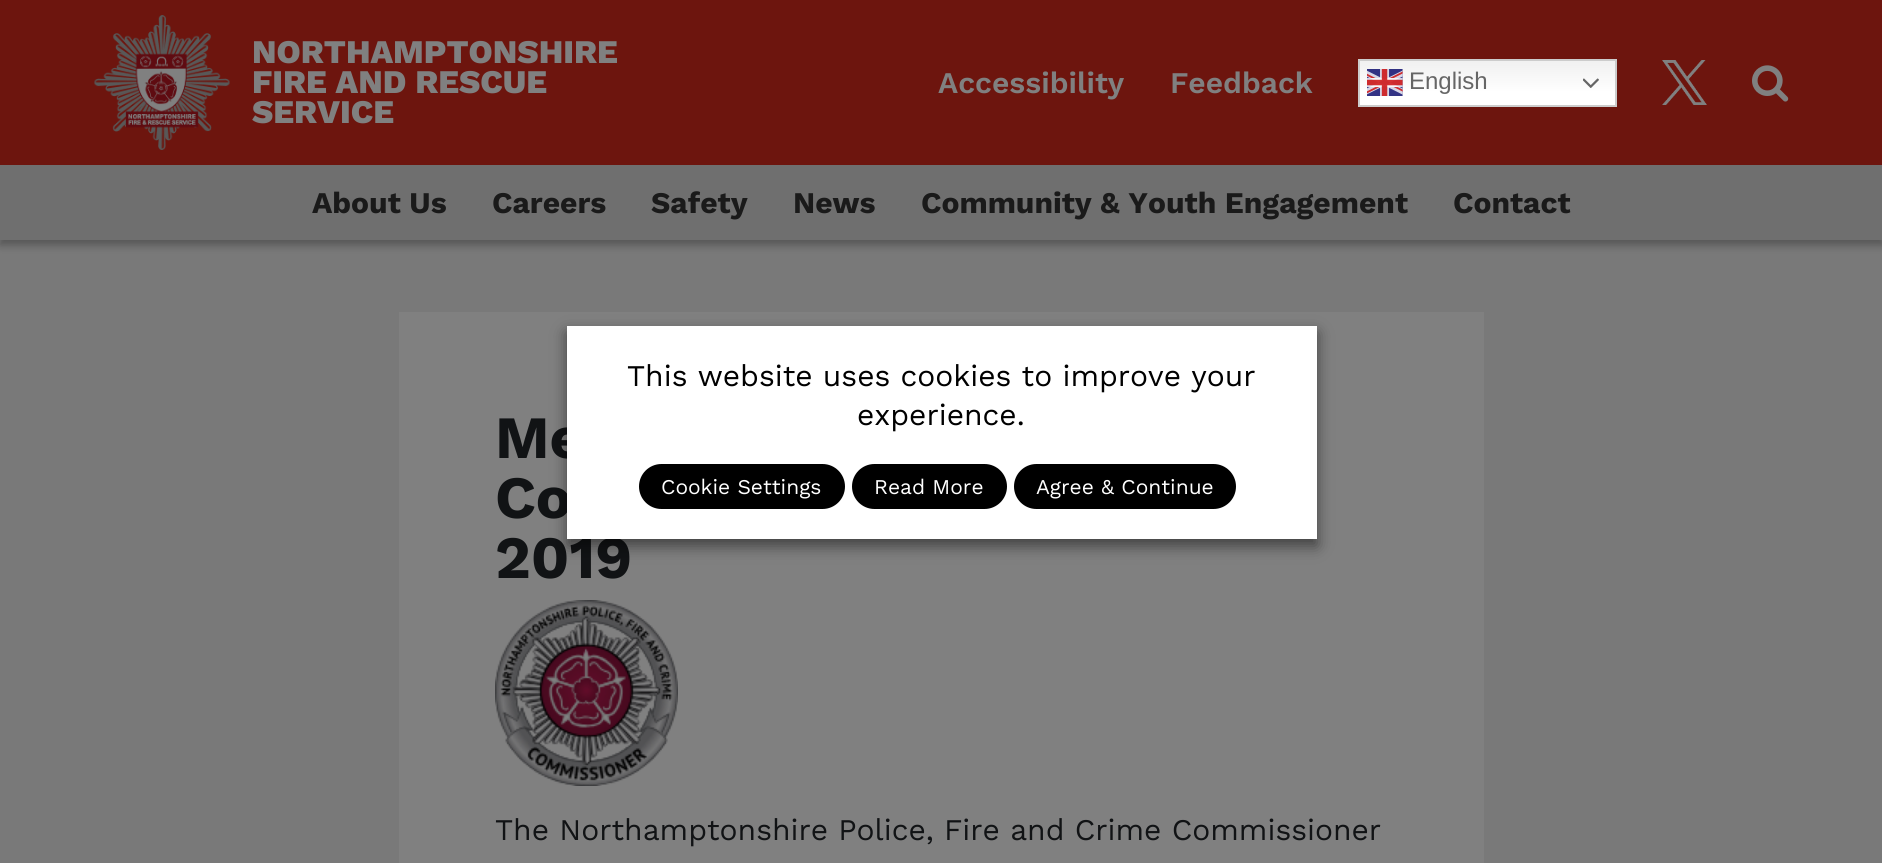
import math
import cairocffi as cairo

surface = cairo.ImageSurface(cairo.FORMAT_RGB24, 1882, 863)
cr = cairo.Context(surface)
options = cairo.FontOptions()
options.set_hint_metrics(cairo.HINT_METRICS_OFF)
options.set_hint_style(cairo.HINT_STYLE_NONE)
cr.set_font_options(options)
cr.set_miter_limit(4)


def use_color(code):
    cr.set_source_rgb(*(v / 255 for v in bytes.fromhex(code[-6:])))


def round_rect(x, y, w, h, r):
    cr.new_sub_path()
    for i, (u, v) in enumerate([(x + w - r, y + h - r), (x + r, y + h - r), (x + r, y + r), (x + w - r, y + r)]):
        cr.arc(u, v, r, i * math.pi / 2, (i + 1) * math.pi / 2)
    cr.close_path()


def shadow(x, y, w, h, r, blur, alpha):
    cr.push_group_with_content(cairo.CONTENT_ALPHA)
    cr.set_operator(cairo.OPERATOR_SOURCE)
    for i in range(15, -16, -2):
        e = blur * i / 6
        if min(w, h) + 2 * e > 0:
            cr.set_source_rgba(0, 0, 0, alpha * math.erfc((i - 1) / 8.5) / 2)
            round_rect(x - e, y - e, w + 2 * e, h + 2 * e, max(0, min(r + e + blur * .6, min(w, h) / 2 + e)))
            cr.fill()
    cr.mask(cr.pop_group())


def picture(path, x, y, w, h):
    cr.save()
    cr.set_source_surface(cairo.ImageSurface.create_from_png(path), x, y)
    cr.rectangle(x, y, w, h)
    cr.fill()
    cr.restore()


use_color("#797979")
cr.paint()
use_color("#000000")
shadow(0, 170, 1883, 75, 0, 4.5, 0.3)
use_color("#6d150e")
cr.rectangle(0, 0, 1882, 165)
cr.fill()
picture("img1.png", 94, 15, 136, 135)
cr.select_font_face("Work Sans ExtraBold")
cr.set_font_size(33)
use_color("#808080")
cr.move_to(252, 63)
cr.show_text("NORTHAMPTONSHIRE")
cr.move_to(252, 93)
cr.show_text("FIRE AND RESCUE")
cr.move_to(252, 123)
cr.show_text("SERVICE")
cr.select_font_face("Work Sans SemiBold")
cr.set_font_size(30)
cr.move_to(938, 93)
cr.show_text("Accessibility")
cr.move_to(1170, 93)
cr.show_text("Feedback")
gradient = cairo.LinearGradient(1487, 58, 1487, 107)
gradient.add_color_stop_rgba(0, 0.937, 0.937, 0.937, 1)
gradient.add_color_stop_rgba(0.7, 1, 1, 1, 1)
cr.set_source(gradient)
cr.rectangle(1360, 61, 255, 44)
cr.fill()
cr.rectangle(1359, 60, 257, 46)
use_color("#cccccc")
cr.stroke()
picture("img2.png", 1367, 69, 36, 27)
cr.select_font_face("Liberation Sans")
cr.set_font_size(24)
use_color("#666666")
cr.move_to(1409, 89)
cr.show_text("English")
picture("img3.png", 1583, 78, 16, 10)
picture("img4.png", 1662, 60, 45, 45)
picture("img5.png", 1752, 65, 37, 37)
use_color("#6f6f6f")
cr.rectangle(0, 165, 1882, 75)
cr.fill()
cr.select_font_face("Work Sans", cairo.FONT_SLANT_NORMAL, cairo.FONT_WEIGHT_BOLD)
cr.set_font_size(30)
use_color("#1a1a1a")
cr.move_to(312, 213)
cr.show_text("About Us")
cr.move_to(492, 213)
cr.show_text("Careers")
cr.move_to(651, 213)
cr.show_text("Safety")
cr.move_to(793, 213)
cr.show_text("News")
cr.move_to(921, 213)
cr.show_text("Community & Youth Engagement")
cr.move_to(1453, 213)
cr.show_text("Contact")
use_color("#808080")
cr.rectangle(399, 312, 1085, 551)
cr.fill()
cr.set_font_size(60)
use_color("#111315")
cr.move_to(495, 458)
cr.show_text("Me")
cr.move_to(495, 518)
cr.show_text("Co")
cr.move_to(495, 578)
cr.show_text("2019")
picture("img6.png", 495, 600, 183, 186)
cr.select_font_face("Work Sans")
cr.set_font_size(30)
cr.move_to(495, 840)
cr.show_text("The Northamptonshire Police, Fire and Crime Commissioner")
use_color("#000000")
shadow(567, 333, 750, 213, 0, 7.5, 0.5)
use_color("#ffffff")
cr.rectangle(567, 326, 750, 213)
cr.fill()
use_color("#000000")
cr.move_to(627, 386)
cr.show_text("This website uses cookies to improve your")
cr.move_to(857, 425)
cr.show_text("experience.")
round_rect(639, 464, 206, 45, 22.5)
cr.fill()
cr.set_font_size(21)
use_color("#ffffff")
cr.move_to(661, 494)
cr.show_text("Cookie Settings")
use_color("#000000")
round_rect(852, 464, 155, 45, 22.5)
cr.fill()
use_color("#ffffff")
cr.move_to(874, 494)
cr.show_text("Read More")
use_color("#000000")
round_rect(1014, 464, 222, 45, 22.5)
cr.fill()
use_color("#ffffff")
cr.move_to(1036, 494)
cr.show_text("Agree & Continue")
surface.write_to_png("result.png")
